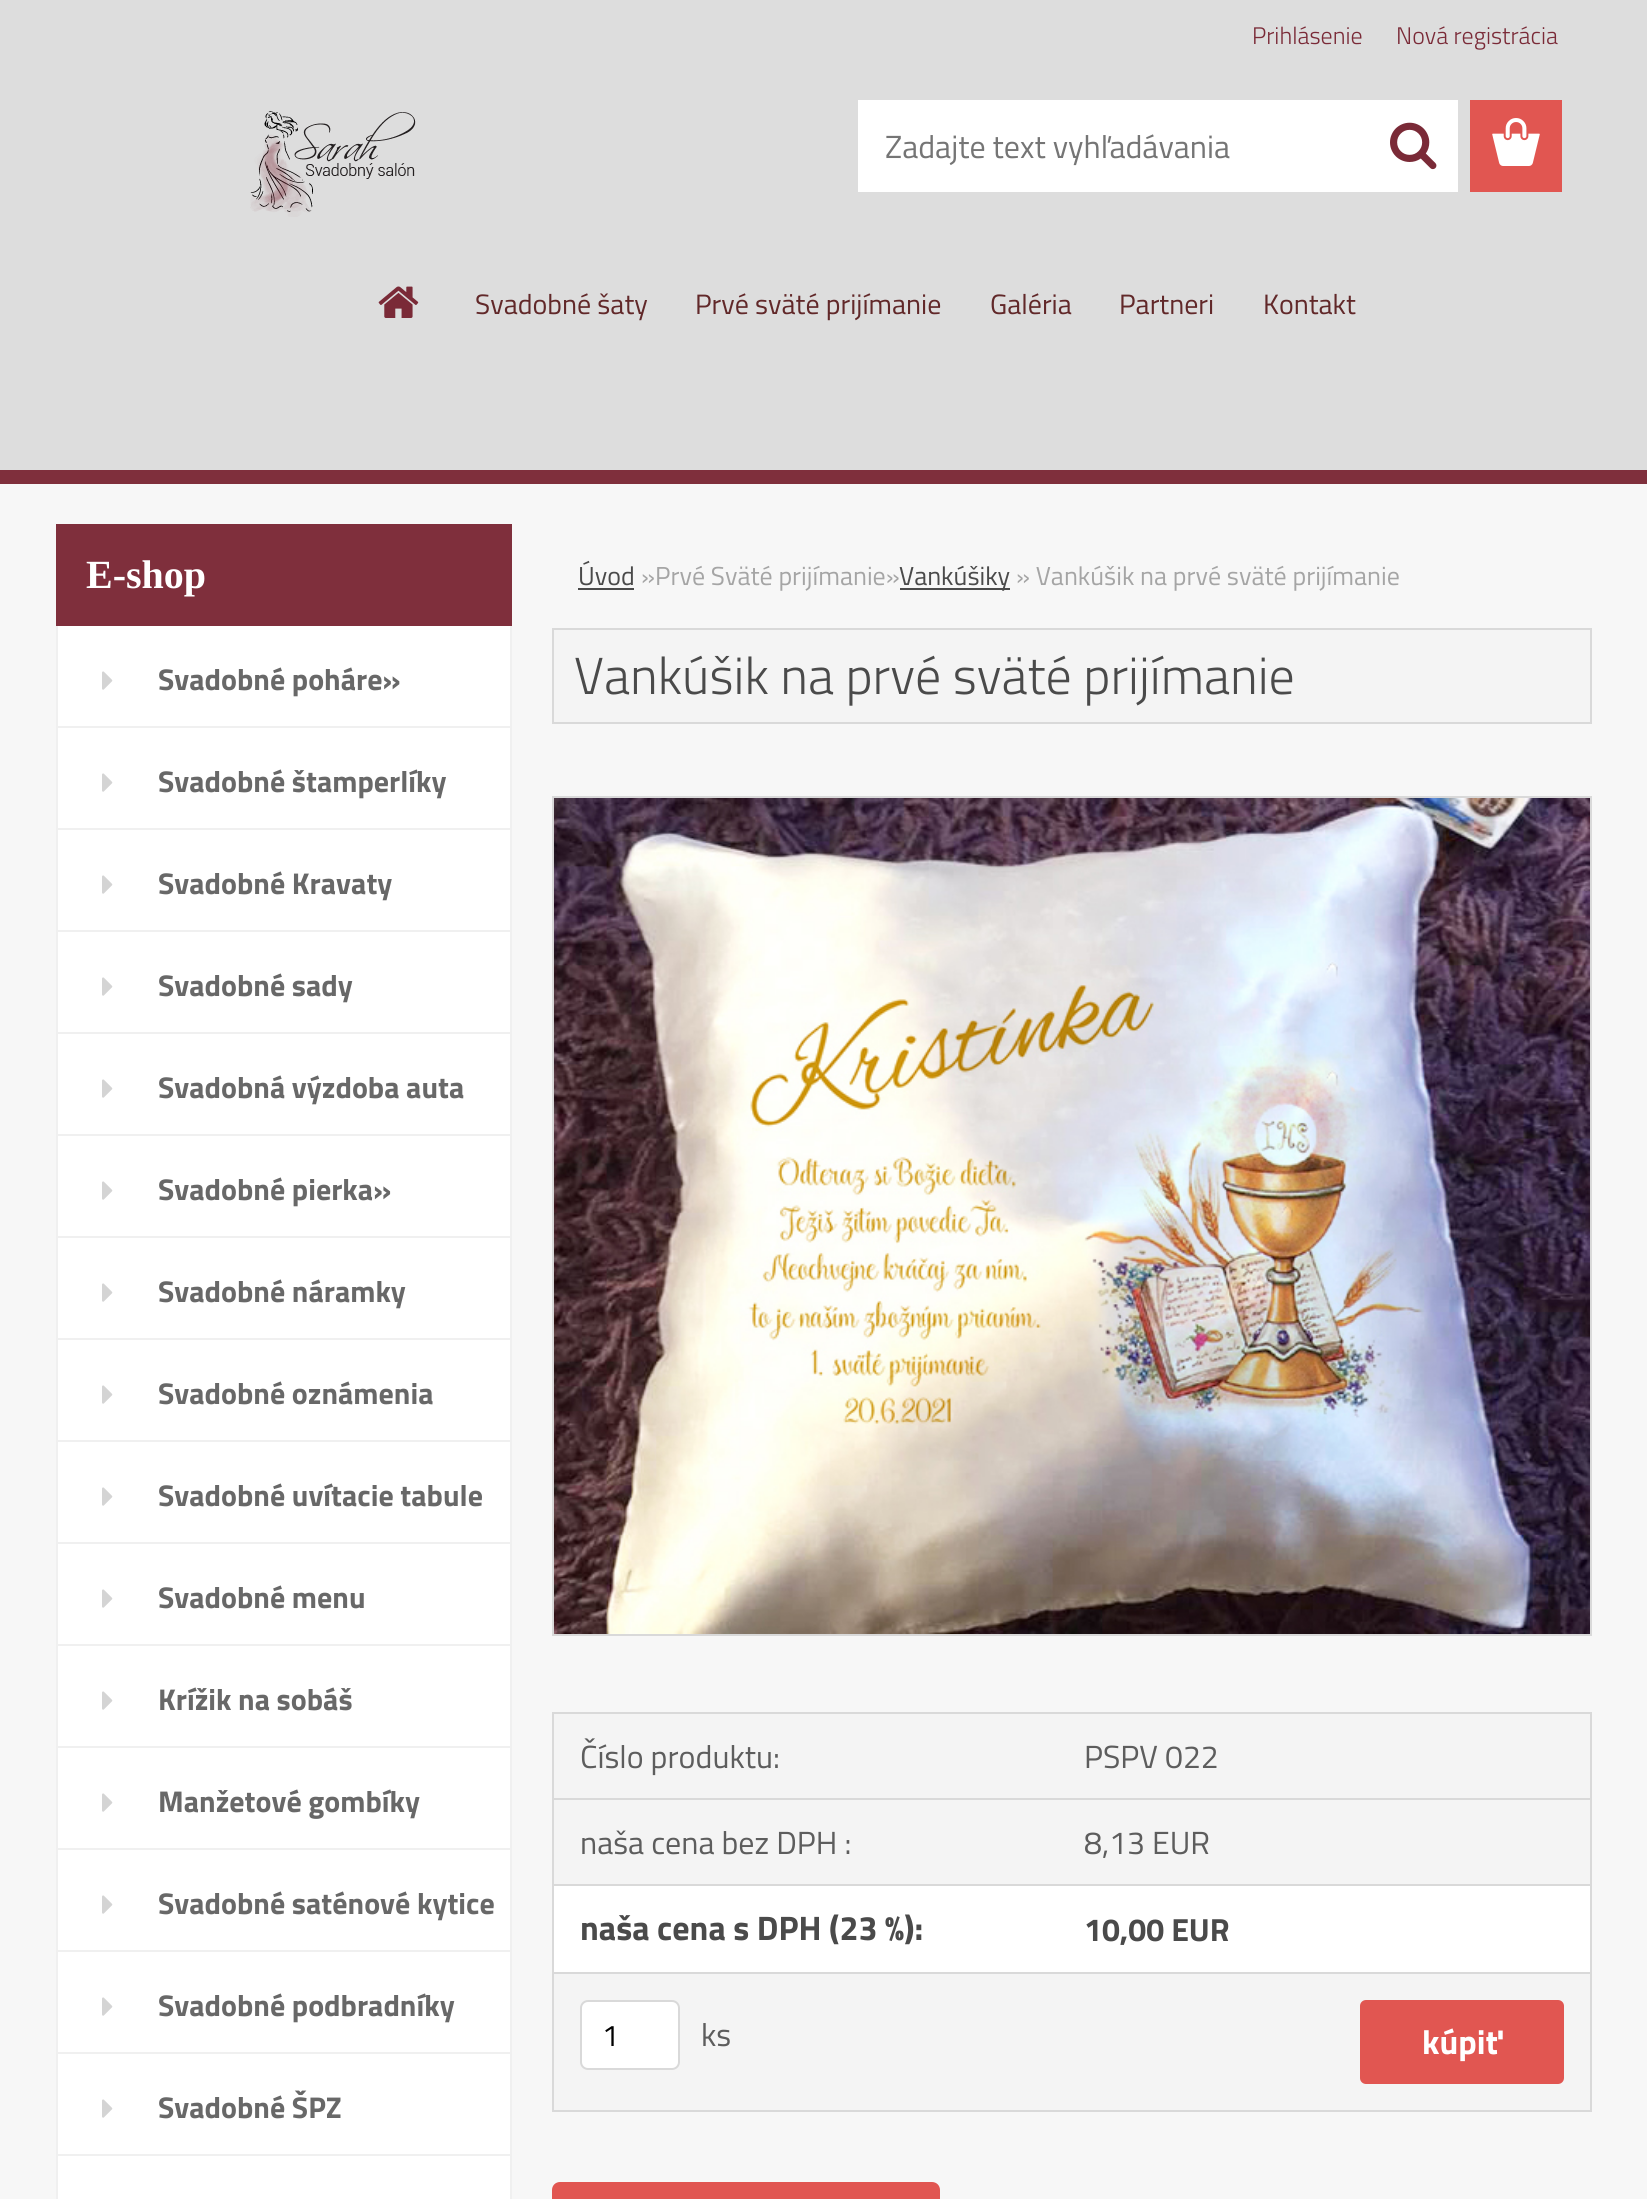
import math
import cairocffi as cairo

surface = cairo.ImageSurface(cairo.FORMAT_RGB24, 1647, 2199)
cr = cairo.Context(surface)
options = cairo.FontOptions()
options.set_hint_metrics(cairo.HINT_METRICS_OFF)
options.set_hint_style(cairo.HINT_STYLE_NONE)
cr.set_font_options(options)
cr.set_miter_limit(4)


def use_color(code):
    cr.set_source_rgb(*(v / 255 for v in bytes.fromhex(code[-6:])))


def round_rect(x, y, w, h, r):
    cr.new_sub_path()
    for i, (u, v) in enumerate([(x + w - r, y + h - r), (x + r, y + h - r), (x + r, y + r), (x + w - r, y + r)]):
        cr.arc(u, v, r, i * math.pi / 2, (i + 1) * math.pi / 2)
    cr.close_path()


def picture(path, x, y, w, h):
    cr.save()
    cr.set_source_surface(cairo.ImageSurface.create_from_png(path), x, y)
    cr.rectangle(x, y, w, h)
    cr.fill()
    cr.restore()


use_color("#f7f7f7")
cr.paint()
use_color("#dddddd")
cr.rectangle(0, 0, 1647, 470)
cr.fill()
cr.select_font_face("Titillium Web Light")
cr.set_font_size(24)
use_color("#7a2a37")
cr.move_to(1252, 44)
cr.show_text("Prihlásenie")
cr.move_to(1396, 44)
cr.show_text("Nová registrácia")
use_color("#e15651")
cr.rectangle(1470, 100, 92, 92)
cr.fill()
picture("img1.png", 1492, 118, 48, 48)
use_color("#7f2f3c")
cr.rectangle(56, 524, 456, 102)
cr.fill()
cr.select_font_face("Liberation Serif", cairo.FONT_SLANT_NORMAL, cairo.FONT_WEIGHT_BOLD)
cr.set_font_size(40)
use_color("#ffffff")
cr.move_to(86, 588)
cr.show_text("E-shop")
cr.rectangle(58, 626, 452, 100)
cr.fill()
use_color("#f0f0f0")
cr.rectangle(510, 626, 2, 1573)
cr.fill()
cr.rectangle(56, 726, 456, 2)
cr.fill()
cr.rectangle(56, 626, 2, 102)
cr.fill()
picture("img2.png", 102, 671, 11, 19)
cr.select_font_face("Titillium Web", cairo.FONT_SLANT_NORMAL, cairo.FONT_WEIGHT_BOLD)
cr.set_font_size(30)
use_color("#686868")
cr.move_to(158, 690)
cr.show_text("Svadobné poháre»")
use_color("#ffffff")
cr.rectangle(58, 728, 452, 100)
cr.fill()
use_color("#f0f0f0")
cr.rectangle(56, 828, 456, 2)
cr.fill()
cr.rectangle(56, 728, 2, 102)
cr.fill()
picture("img2.png", 102, 773, 11, 19)
use_color("#686868")
cr.move_to(158, 792)
cr.show_text("Svadobné štamperlíky")
use_color("#ffffff")
cr.rectangle(58, 830, 452, 100)
cr.fill()
use_color("#f0f0f0")
cr.rectangle(56, 930, 456, 2)
cr.fill()
cr.rectangle(56, 830, 2, 102)
cr.fill()
picture("img2.png", 102, 875, 11, 19)
use_color("#686868")
cr.move_to(158, 894)
cr.show_text("Svadobné Kravaty")
use_color("#ffffff")
cr.rectangle(58, 932, 452, 100)
cr.fill()
use_color("#f0f0f0")
cr.rectangle(56, 1032, 456, 2)
cr.fill()
cr.rectangle(56, 932, 2, 102)
cr.fill()
picture("img2.png", 102, 977, 11, 19)
use_color("#686868")
cr.move_to(158, 996)
cr.show_text("Svadobné sady")
use_color("#ffffff")
cr.rectangle(58, 1034, 452, 100)
cr.fill()
use_color("#f0f0f0")
cr.rectangle(56, 1134, 456, 2)
cr.fill()
cr.rectangle(56, 1034, 2, 102)
cr.fill()
picture("img2.png", 102, 1079, 11, 19)
use_color("#686868")
cr.move_to(158, 1098)
cr.show_text("Svadobná výzdoba auta")
use_color("#ffffff")
cr.rectangle(58, 1136, 452, 100)
cr.fill()
use_color("#f0f0f0")
cr.rectangle(56, 1236, 456, 2)
cr.fill()
cr.rectangle(56, 1136, 2, 102)
cr.fill()
picture("img2.png", 102, 1181, 11, 19)
use_color("#686868")
cr.move_to(158, 1200)
cr.show_text("Svadobné pierka»")
use_color("#ffffff")
cr.rectangle(58, 1238, 452, 100)
cr.fill()
use_color("#f0f0f0")
cr.rectangle(56, 1338, 456, 2)
cr.fill()
cr.rectangle(56, 1238, 2, 102)
cr.fill()
picture("img2.png", 102, 1283, 11, 19)
use_color("#686868")
cr.move_to(158, 1302)
cr.show_text("Svadobné náramky")
use_color("#ffffff")
cr.rectangle(58, 1340, 452, 100)
cr.fill()
use_color("#f0f0f0")
cr.rectangle(56, 1440, 456, 2)
cr.fill()
cr.rectangle(56, 1340, 2, 102)
cr.fill()
picture("img2.png", 102, 1385, 11, 19)
use_color("#686868")
cr.move_to(158, 1404)
cr.show_text("Svadobné oznámenia")
use_color("#ffffff")
cr.rectangle(58, 1442, 452, 100)
cr.fill()
use_color("#f0f0f0")
cr.rectangle(56, 1542, 456, 2)
cr.fill()
cr.rectangle(56, 1442, 2, 102)
cr.fill()
picture("img2.png", 102, 1487, 11, 19)
use_color("#686868")
cr.move_to(158, 1506)
cr.show_text("Svadobné uvítacie tabule")
use_color("#ffffff")
cr.rectangle(58, 1544, 452, 100)
cr.fill()
use_color("#f0f0f0")
cr.rectangle(56, 1644, 456, 2)
cr.fill()
cr.rectangle(56, 1544, 2, 102)
cr.fill()
picture("img2.png", 102, 1589, 11, 19)
use_color("#686868")
cr.move_to(158, 1608)
cr.show_text("Svadobné menu")
use_color("#ffffff")
cr.rectangle(58, 1646, 452, 100)
cr.fill()
use_color("#f0f0f0")
cr.rectangle(56, 1746, 456, 2)
cr.fill()
cr.rectangle(56, 1646, 2, 102)
cr.fill()
picture("img2.png", 102, 1691, 11, 19)
use_color("#686868")
cr.move_to(158, 1710)
cr.show_text("Krížik na sobáš")
use_color("#ffffff")
cr.rectangle(58, 1748, 452, 100)
cr.fill()
use_color("#f0f0f0")
cr.rectangle(56, 1848, 456, 2)
cr.fill()
cr.rectangle(56, 1748, 2, 102)
cr.fill()
picture("img2.png", 102, 1793, 11, 19)
use_color("#686868")
cr.move_to(158, 1812)
cr.show_text("Manžetové gombíky")
use_color("#ffffff")
cr.rectangle(58, 1850, 452, 100)
cr.fill()
use_color("#f0f0f0")
cr.rectangle(56, 1950, 456, 2)
cr.fill()
cr.rectangle(56, 1850, 2, 102)
cr.fill()
picture("img2.png", 102, 1895, 11, 19)
use_color("#686868")
cr.move_to(158, 1914)
cr.show_text("Svadobné saténové kytice")
use_color("#ffffff")
cr.rectangle(58, 1952, 452, 100)
cr.fill()
use_color("#f0f0f0")
cr.rectangle(56, 2052, 456, 2)
cr.fill()
cr.rectangle(56, 1952, 2, 102)
cr.fill()
picture("img2.png", 102, 1997, 11, 19)
use_color("#686868")
cr.move_to(158, 2016)
cr.show_text("Svadobné podbradníky")
use_color("#ffffff")
cr.rectangle(58, 2054, 452, 100)
cr.fill()
use_color("#f0f0f0")
cr.rectangle(56, 2154, 456, 2)
cr.fill()
cr.rectangle(56, 2054, 2, 145)
cr.fill()
picture("img2.png", 102, 2099, 11, 19)
use_color("#686868")
cr.move_to(158, 2118)
cr.show_text("Svadobné ŠPZ")
use_color("#ffffff")
cr.rectangle(58, 2156, 452, 43)
cr.fill()
cr.select_font_face("Titillium Web")
cr.set_font_size(26)
use_color("#4a4a4a")
cr.move_to(578, 585)
cr.show_text("Úvod")
cr.rectangle(578, 588, 56, 2)
cr.fill()
use_color("#a5a5a5")
cr.move_to(641, 585)
cr.show_text("»Prvé Sväté prijímanie»")
use_color("#4a4a4a")
cr.rectangle(900, 588, 110, 2)
cr.fill()
cr.move_to(899, 585)
cr.show_text("Vankúšiky")
use_color("#a5a5a5")
cr.move_to(1016, 585)
cr.show_text("» Vankúšik na prvé sväté prijímanie")
use_color("#f4f4f4")
cr.rectangle(553, 629, 1038, 94)
cr.fill_preserve()
use_color("#d9d9d9")
cr.stroke()
cr.select_font_face("Titillium Web Light")
cr.set_font_size(52)
use_color("#4a4a4a")
cr.move_to(574, 694)
cr.show_text("Vankúšik na prvé sväté prijímanie")
cr.rectangle(553, 797, 1038, 838)
use_color("#d9d9d9")
cr.stroke()
picture("img3.png", 554, 798, 1036, 836)
use_color("#ffffff")
cr.rectangle(554, 1886, 1036, 86)
cr.fill()
use_color("#d9d9d9")
cr.rectangle(552, 1712, 1040, 2)
cr.fill()
cr.rectangle(1590, 1712, 2, 400)
cr.fill()
cr.rectangle(552, 2110, 1040, 2)
cr.fill()
cr.rectangle(552, 1712, 2, 400)
cr.fill()
use_color("#f4f4f4")
cr.rectangle(554, 1714, 1036, 84)
cr.fill()
cr.select_font_face("Titillium Web")
cr.set_font_size(32)
use_color("#5d5d5d")
cr.move_to(580, 1768)
cr.show_text("Číslo produktu:")
cr.move_to(1084, 1768)
cr.show_text("PSPV 022")
use_color("#f4f4f4")
cr.rectangle(554, 1800, 1036, 84)
cr.fill()
use_color("#d9d9d9")
cr.rectangle(552, 1798, 1040, 2)
cr.fill()
use_color("#5d5d5d")
cr.move_to(580, 1854)
cr.show_text("naša cena bez DPH :")
cr.move_to(1084, 1854)
cr.show_text("8,13 EUR")
use_color("#d9d9d9")
cr.rectangle(552, 1884, 1040, 2)
cr.fill()
cr.select_font_face("Titillium Web", cairo.FONT_SLANT_NORMAL, cairo.FONT_WEIGHT_BOLD)
cr.set_font_size(34)
use_color("#4a4a4a")
cr.move_to(580, 1940)
cr.show_text("naša cena s DPH (23 %):")
cr.set_font_size(32)
cr.move_to(1084, 1941)
cr.show_text("10,00 EUR")
use_color("#f4f4f4")
cr.rectangle(554, 1974, 1036, 136)
cr.fill()
use_color("#d9d9d9")
cr.rectangle(552, 1972, 1040, 2)
cr.fill()
use_color("#ffffff")
round_rect(581, 2001, 98, 68, 7)
cr.fill_preserve()
use_color("#d9d9d9")
cr.stroke()
cr.select_font_face("Titillium Web")
cr.set_font_size(30)
use_color("#000000")
cr.move_to(602, 2046)
cr.show_text("1")
cr.set_font_size(32)
use_color("#5d5d5d")
cr.move_to(701, 2046)
cr.show_text("ks")
use_color("#e15651")
round_rect(1360, 2000, 204, 84, 6)
cr.fill()
cr.select_font_face("Titillium Web", cairo.FONT_SLANT_NORMAL, cairo.FONT_WEIGHT_BOLD)
cr.set_font_size(34)
use_color("#ffffff")
cr.move_to(1422, 2054)
cr.show_text("kúpiť")
use_color("#e15651")
cr.new_path()
cr.move_to(560, 2182)
cr.line_to(932, 2182)
cr.curve_to(936.5, 2182, 940, 2185.5, 940, 2190)
cr.line_to(940, 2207)
cr.line_to(552, 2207)
cr.line_to(552, 2190)
cr.curve_to(552, 2185.5, 555.5, 2182, 560, 2182)
cr.close_path()
cr.fill()
use_color("#7f2f3c")
cr.rectangle(0, 470, 1647, 14)
cr.fill()
picture("img4.png", 250, 111, 166, 106)
use_color("#ffffff")
cr.rectangle(858, 100, 600, 92)
cr.fill()
picture("img5.png", 1390, 122, 47, 48)
cr.select_font_face("Titillium Web")
cr.set_font_size(32)
use_color("#757575")
cr.move_to(885, 158)
cr.show_text("Zadajte text vyhľadávania")
picture("img6.png", 378, 286, 41, 32)
cr.set_font_size(28)
use_color("#612829")
cr.move_to(475, 314)
cr.show_text("Svadobné šaty")
cr.move_to(695, 314)
cr.show_text("Prvé sväté prijímanie")
cr.move_to(990, 314)
cr.show_text("Galéria")
cr.move_to(1119, 314)
cr.show_text("Partneri")
cr.move_to(1263, 314)
cr.show_text("Kontakt")
surface.write_to_png("result.png")
